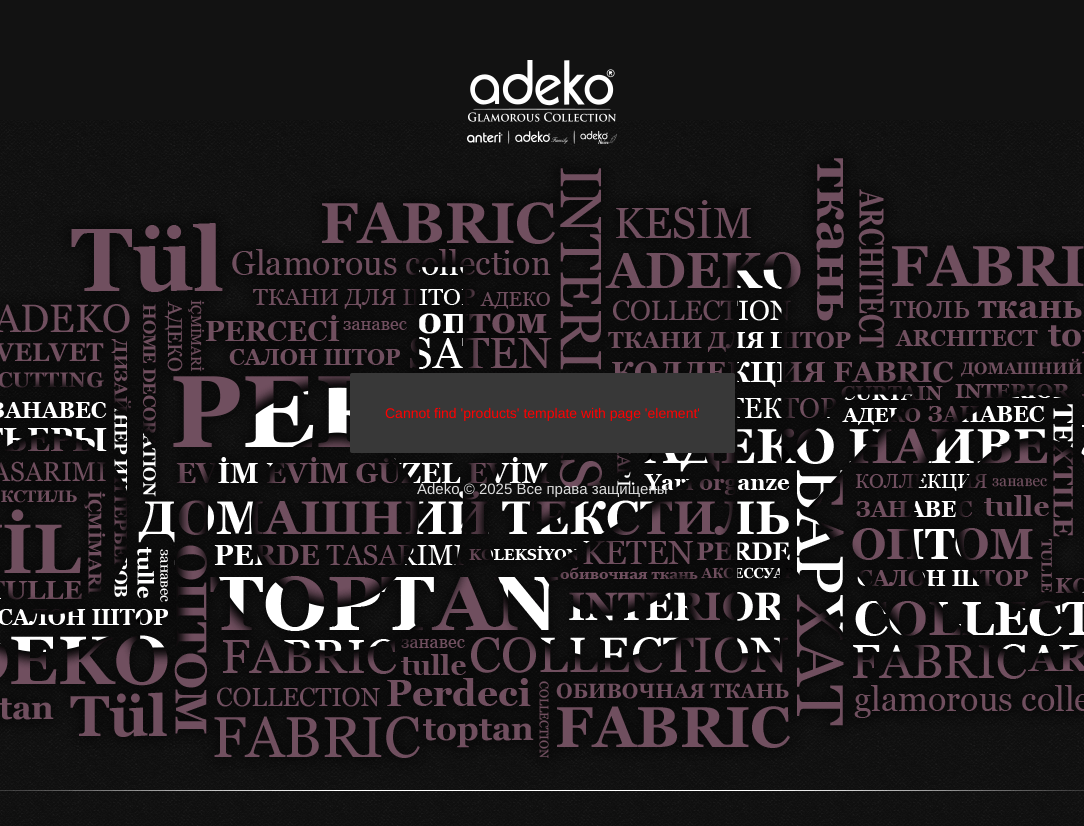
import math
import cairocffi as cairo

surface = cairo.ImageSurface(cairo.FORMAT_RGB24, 1084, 826)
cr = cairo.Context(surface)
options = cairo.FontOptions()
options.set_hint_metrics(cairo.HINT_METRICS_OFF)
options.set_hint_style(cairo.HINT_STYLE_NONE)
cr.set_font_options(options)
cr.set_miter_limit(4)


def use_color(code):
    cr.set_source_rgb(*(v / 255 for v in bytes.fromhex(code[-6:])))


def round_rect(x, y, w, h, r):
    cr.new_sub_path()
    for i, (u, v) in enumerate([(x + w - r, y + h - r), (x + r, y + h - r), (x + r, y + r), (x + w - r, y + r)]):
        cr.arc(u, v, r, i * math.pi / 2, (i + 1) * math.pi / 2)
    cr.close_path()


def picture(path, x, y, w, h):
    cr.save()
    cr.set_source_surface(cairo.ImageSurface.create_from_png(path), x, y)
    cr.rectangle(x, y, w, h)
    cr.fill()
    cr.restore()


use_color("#121212")
cr.paint()
picture("img1.png", 0, 120, 1084, 706)
picture("img2.png", 467, 60, 150, 84)
use_color("#383838")
round_rect(350, 373, 385, 80, 2)
cr.fill()
cr.select_font_face("Liberation Sans")
cr.set_font_size(14)
use_color("#ff0000")
cr.move_to(385, 418)
cr.show_text("Cannot find 'products' template with page 'element'")
cr.set_font_size(15)
use_color("#dddddd")
cr.move_to(417, 494)
cr.show_text("Adeko © 2025 Все права защищены")
surface.write_to_png("result.png")
